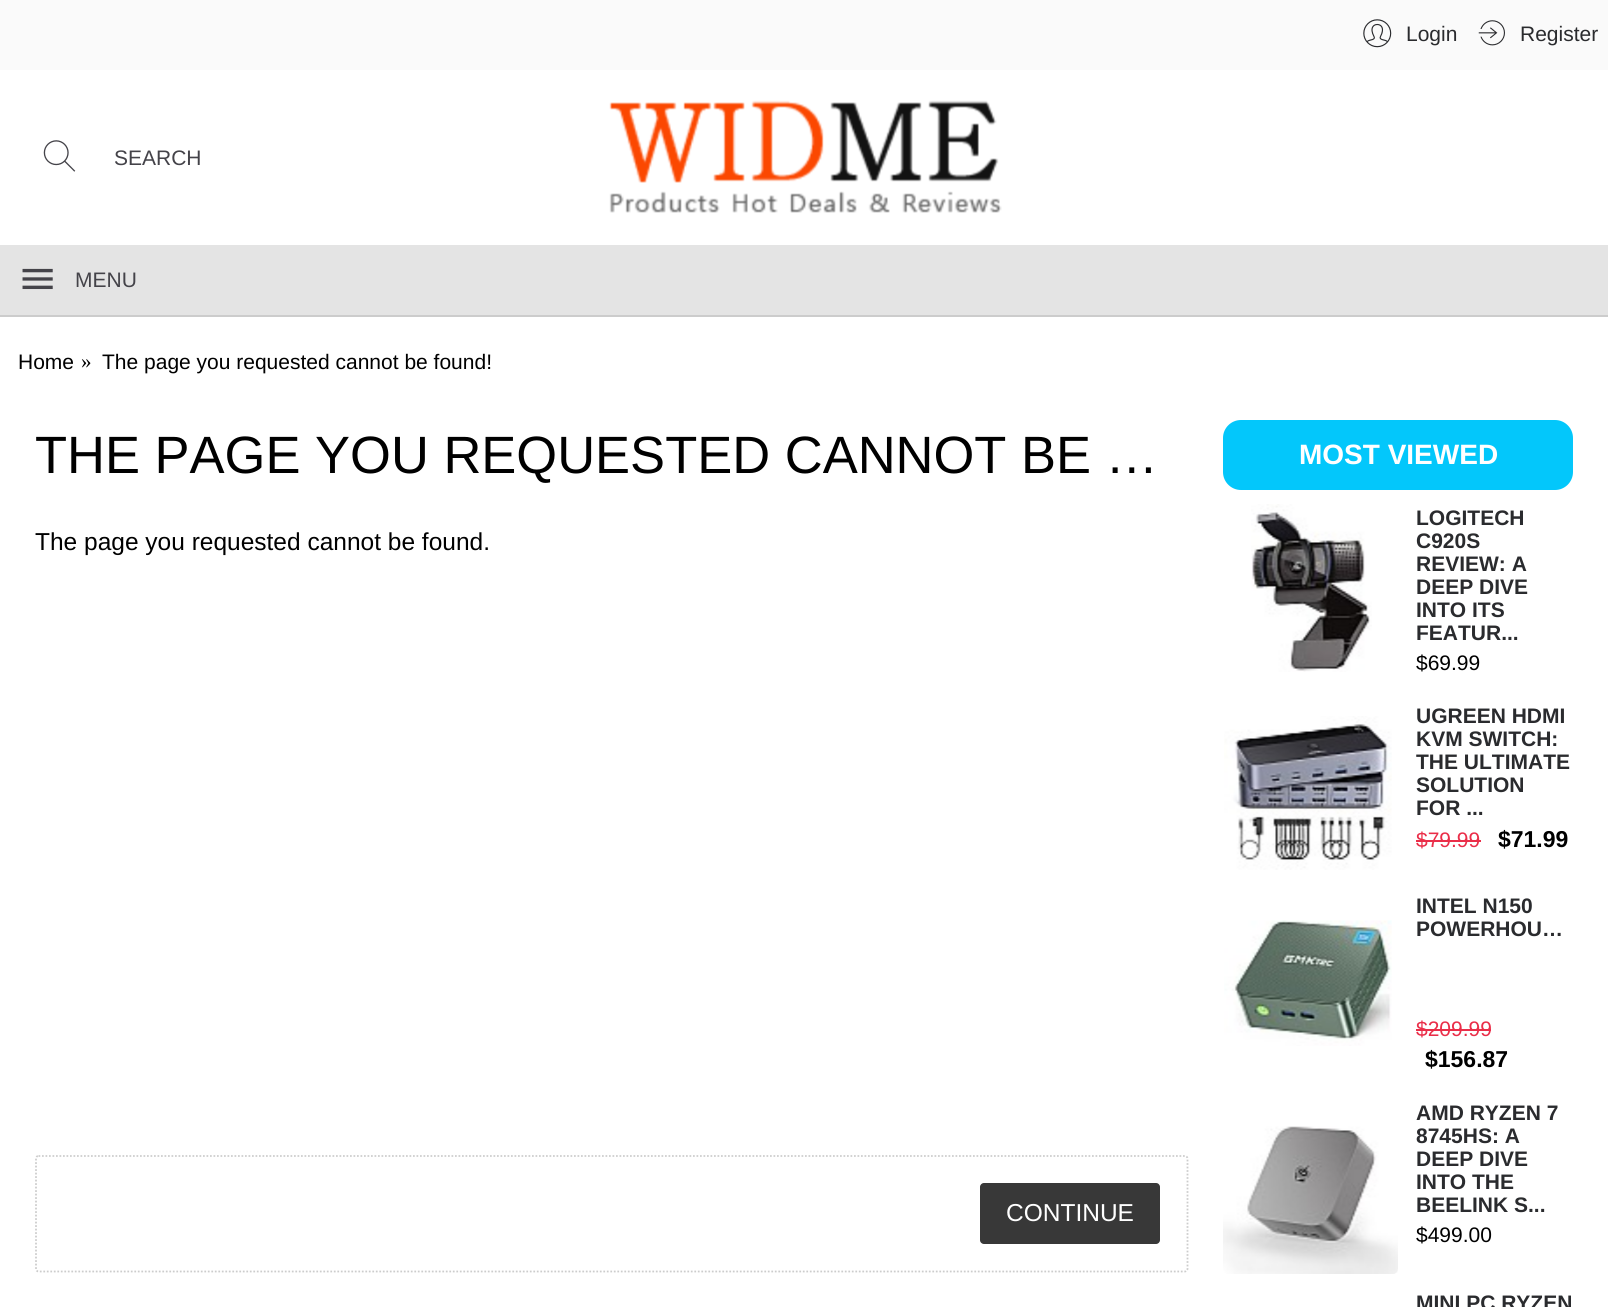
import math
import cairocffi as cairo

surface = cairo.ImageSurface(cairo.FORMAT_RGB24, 1608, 1307)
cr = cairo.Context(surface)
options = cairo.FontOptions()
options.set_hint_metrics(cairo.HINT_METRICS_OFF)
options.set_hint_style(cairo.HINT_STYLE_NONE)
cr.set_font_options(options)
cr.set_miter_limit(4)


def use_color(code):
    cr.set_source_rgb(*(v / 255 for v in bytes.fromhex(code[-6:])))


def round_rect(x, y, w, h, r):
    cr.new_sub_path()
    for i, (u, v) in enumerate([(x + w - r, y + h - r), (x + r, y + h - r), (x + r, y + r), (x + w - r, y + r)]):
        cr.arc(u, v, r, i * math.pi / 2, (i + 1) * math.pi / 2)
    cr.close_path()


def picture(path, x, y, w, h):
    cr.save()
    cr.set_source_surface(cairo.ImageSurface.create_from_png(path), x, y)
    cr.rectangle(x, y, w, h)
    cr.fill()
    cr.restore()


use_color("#ffffff")
cr.paint()
use_color("#cccccc")
cr.rectangle(0, 315, 1608, 2)
cr.fill()
use_color("#fafafa")
cr.rectangle(0, 0, 1608, 70)
cr.fill()
picture("img1.png", 1363, 19, 29, 29)
cr.select_font_face("Liberation Sans")
cr.set_font_size(21)
use_color("#2a2b2e")
cr.move_to(1406, 41)
cr.show_text("Login")
picture("img2.png", 1478, 20, 27, 26)
cr.move_to(1520, 41)
cr.show_text("Register")
picture("img3.png", 43, 140, 33, 32)
use_color("#444349")
cr.move_to(114, 165)
cr.show_text("SEARCH")
picture("img4.png", 609, 100, 393, 113)
use_color("#e4e4e4")
cr.rectangle(0, 245, 1608, 70)
cr.fill()
picture("img5.png", 22, 268, 31, 22)
use_color("#444349")
cr.move_to(75, 287)
cr.show_text("MENU")
use_color("#000000")
cr.move_to(18, 369)
cr.show_text("Home")
cr.select_font_face("Liberation Serif")
cr.move_to(81, 368)
cr.show_text("»")
cr.select_font_face("Liberation Sans")
cr.move_to(102, 369)
cr.show_text("The page you requested cannot be found!")
cr.set_font_size(52.5)
cr.move_to(35, 473)
cr.show_text("THE PAGE YOU REQUESTED CANNOT BE …")
cr.set_font_size(24.5)
cr.move_to(35, 550)
cr.show_text("The page you requested cannot be found.")
cr.new_path()
cr.move_to(38.5, 1156)
cr.line_to(1185, 1156)
cr.curve_to(1186, 1156, 1187.5, 1157, 1187.5, 1158.5)
cr.line_to(1187.5, 1269)
cr.curve_to(1187.5, 1270, 1186, 1271.5, 1185, 1271.5)
cr.line_to(38.5, 1271.5)
cr.curve_to(37, 1271.5, 36, 1270, 36, 1269)
cr.line_to(36, 1158.5)
cr.curve_to(36, 1157, 37, 1156, 38.5, 1156)
cr.close_path()
use_color("#cccccc")
cr.set_line_width(1.8)
cr.set_dash([1.75, 1.75])
cr.stroke()
use_color("#383838")
round_rect(980, 1183, 180, 61, 4)
cr.fill()
use_color("#ffffff")
cr.move_to(1006, 1221)
cr.show_text("CONTINUE")
use_color("#03c7fb")
round_rect(1223, 420, 350, 70, 18)
cr.fill()
cr.select_font_face("Liberation Sans", cairo.FONT_SLANT_NORMAL, cairo.FONT_WEIGHT_BOLD)
cr.set_font_size(28)
use_color("#ffffff")
cr.move_to(1299, 464)
cr.show_text("MOST VIEWED")
picture("img6.png", 1251, 504, 121, 168)
cr.set_font_size(21)
use_color("#2a2b2e")
cr.move_to(1416, 525)
cr.show_text("LOGITECH")
cr.move_to(1416, 548)
cr.show_text("C920S")
cr.move_to(1416, 571)
cr.show_text("REVIEW: A")
cr.move_to(1416, 594)
cr.show_text("DEEP DIVE")
cr.move_to(1416, 617)
cr.show_text("INTO ITS")
cr.move_to(1416, 640)
cr.show_text("FEATUR...")
cr.select_font_face("Liberation Sans")
use_color("#000000")
cr.move_to(1416, 670)
cr.show_text("$69.99")
picture("img7.png", 1224, 716, 168, 154)
cr.select_font_face("Liberation Sans", cairo.FONT_SLANT_NORMAL, cairo.FONT_WEIGHT_BOLD)
use_color("#2a2b2e")
cr.move_to(1416, 723)
cr.show_text("UGREEN HDMI")
cr.move_to(1416, 746)
cr.show_text("KVM SWITCH:")
cr.move_to(1416, 769)
cr.show_text("THE ULTIMATE")
cr.move_to(1416, 792)
cr.show_text("SOLUTION")
cr.move_to(1416, 815)
cr.show_text("FOR ...")
cr.select_font_face("Liberation Sans")
use_color("#ea2e49")
cr.move_to(1416, 847)
cr.show_text("$79.99")
cr.rectangle(1416, 840, 65, 2)
cr.fill()
cr.select_font_face("Liberation Sans", cairo.FONT_SLANT_NORMAL, cairo.FONT_WEIGHT_BOLD)
cr.set_font_size(23)
use_color("#000000")
cr.move_to(1498, 847)
cr.show_text("$71.99")
picture("img8.png", 1224, 920, 168, 126)
cr.set_font_size(21)
use_color("#2a2b2e")
cr.move_to(1416, 913)
cr.show_text("INTEL N150")
cr.move_to(1416, 936)
cr.show_text("POWERHOU…")
cr.select_font_face("Liberation Sans")
use_color("#ea2e49")
cr.move_to(1416, 1036)
cr.show_text("$209.99")
cr.rectangle(1416, 1029, 75, 2)
cr.fill()
cr.select_font_face("Liberation Sans", cairo.FONT_SLANT_NORMAL, cairo.FONT_WEIGHT_BOLD)
cr.set_font_size(23)
use_color("#000000")
cr.move_to(1425, 1067)
cr.show_text("$156.87")
picture("img9.png", 1223, 1126, 175, 148)
cr.set_font_size(21)
use_color("#2a2b2e")
cr.move_to(1416, 1120)
cr.show_text("AMD RYZEN 7")
cr.move_to(1416, 1143)
cr.show_text("8745HS: A")
cr.move_to(1416, 1166)
cr.show_text("DEEP DIVE")
cr.move_to(1416, 1189)
cr.show_text("INTO THE")
cr.move_to(1416, 1212)
cr.show_text("BEELINK S...")
cr.select_font_face("Liberation Sans")
use_color("#000000")
cr.move_to(1416, 1242)
cr.show_text("$499.00")
cr.select_font_face("Liberation Sans", cairo.FONT_SLANT_NORMAL, cairo.FONT_WEIGHT_BOLD)
use_color("#2a2b2e")
cr.move_to(1416, 1310)
cr.show_text("MINI PC RYZEN")
surface.write_to_png("result.png")
